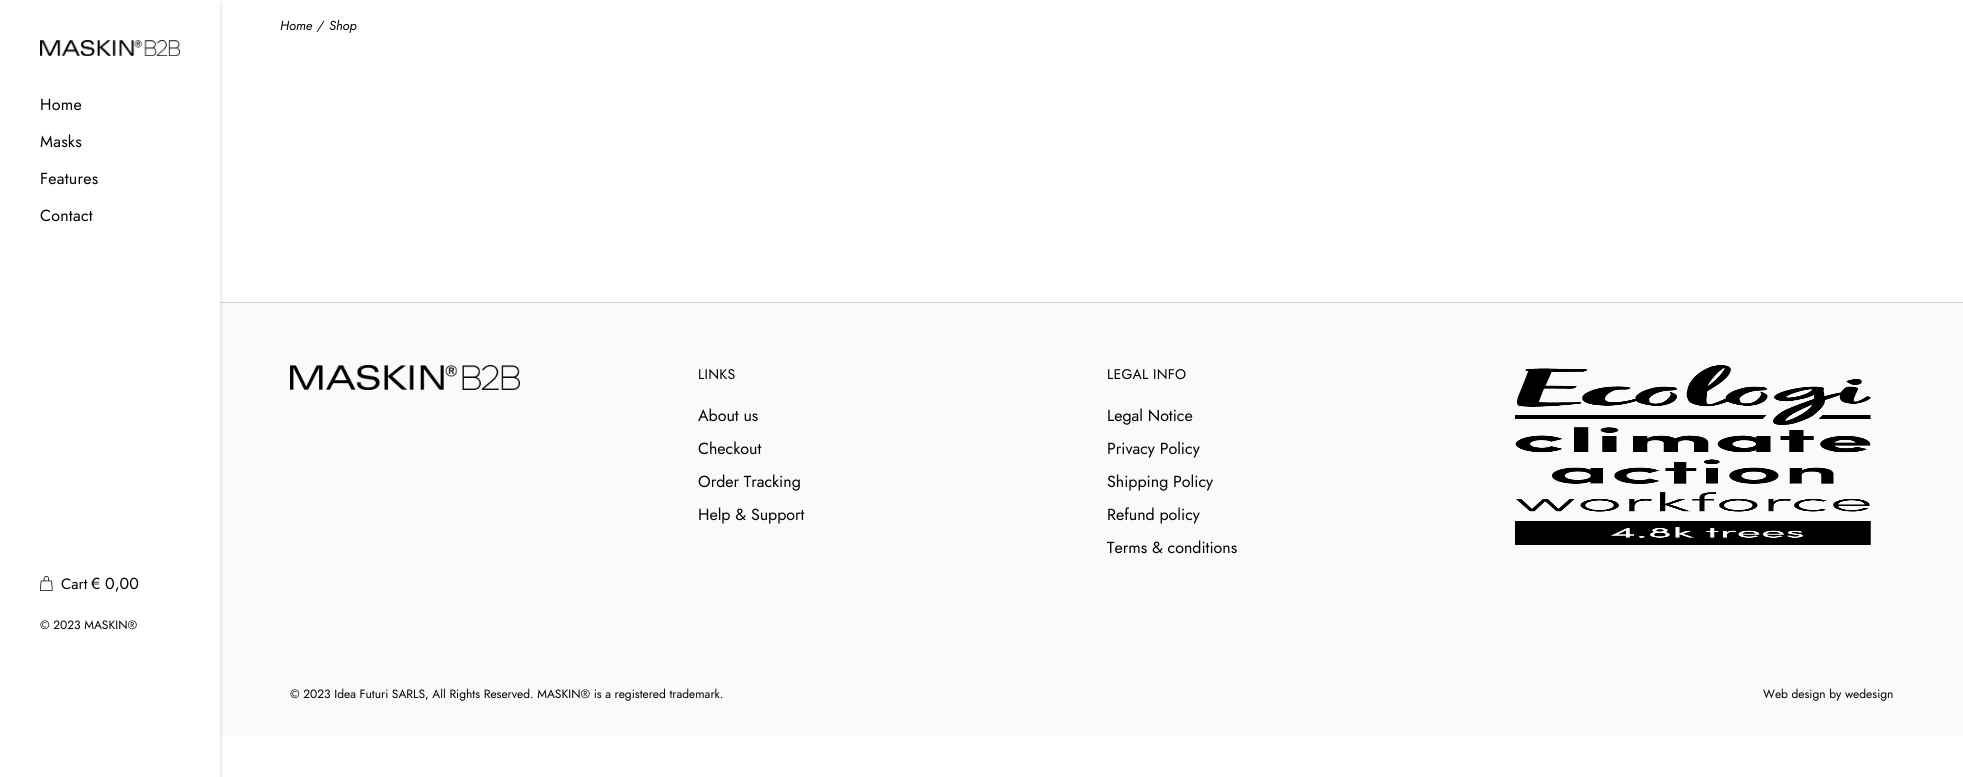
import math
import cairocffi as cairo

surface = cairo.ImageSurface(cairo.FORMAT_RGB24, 1963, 777)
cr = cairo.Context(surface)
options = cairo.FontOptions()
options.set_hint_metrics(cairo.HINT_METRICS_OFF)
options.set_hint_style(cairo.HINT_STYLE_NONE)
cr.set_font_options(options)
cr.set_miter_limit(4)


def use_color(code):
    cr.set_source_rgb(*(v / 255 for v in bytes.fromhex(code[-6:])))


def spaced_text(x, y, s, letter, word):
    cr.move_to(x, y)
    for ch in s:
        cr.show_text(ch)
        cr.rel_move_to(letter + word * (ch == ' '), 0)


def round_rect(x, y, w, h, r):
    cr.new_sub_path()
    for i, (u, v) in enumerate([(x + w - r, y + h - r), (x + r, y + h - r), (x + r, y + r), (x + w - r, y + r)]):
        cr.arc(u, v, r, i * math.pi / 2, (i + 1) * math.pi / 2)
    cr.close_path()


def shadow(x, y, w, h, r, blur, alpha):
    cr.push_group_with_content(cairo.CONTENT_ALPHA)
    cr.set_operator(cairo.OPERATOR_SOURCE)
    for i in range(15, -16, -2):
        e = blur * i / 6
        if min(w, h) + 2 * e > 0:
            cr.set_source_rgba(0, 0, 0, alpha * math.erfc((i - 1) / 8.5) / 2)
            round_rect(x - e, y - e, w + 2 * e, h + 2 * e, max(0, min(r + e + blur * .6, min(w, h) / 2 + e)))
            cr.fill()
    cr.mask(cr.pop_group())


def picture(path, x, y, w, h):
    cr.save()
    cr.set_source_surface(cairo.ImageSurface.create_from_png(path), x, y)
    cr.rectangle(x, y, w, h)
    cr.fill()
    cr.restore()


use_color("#ffffff")
cr.paint()
cr.select_font_face("Jost", cairo.FONT_SLANT_ITALIC)
cr.set_font_size(13)
use_color("#000000")
cr.move_to(280, 30)
cr.show_text("Home")
cr.move_to(317, 30)
cr.show_text("/")
cr.move_to(329, 30)
cr.show_text("Shop")
use_color("#fafafa")
cr.rectangle(220, 303, 1743, 434)
cr.fill()
use_color("#d5d5d5")
cr.rectangle(220, 302, 1743, 1)
cr.fill()
cr.save()
cr.rectangle(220, 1, 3, 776)
cr.clip()
use_color("#000000")
shadow(0, 3, 220, 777, 0, 3, 0.16)
cr.restore()
picture("img1.png", 40, 40, 140, 16)
cr.select_font_face("Jost")
cr.set_font_size(16)
use_color("#000000")
spaced_text(40, 110, "Home", 0.25, 0)
spaced_text(40, 147, "Masks", 0.25, 0)
spaced_text(40, 184, "Features", 0.25, 0)
spaced_text(40, 221, "Contact", 0.25, 0)
picture("img2.png", 40, 576, 13, 15)
cr.set_font_size(15)
cr.move_to(61, 589)
cr.show_text("Cart")
cr.set_font_size(16)
cr.move_to(91, 589)
cr.show_text("€ 0,00")
cr.set_font_size(12)
cr.move_to(40, 629)
cr.show_text("© 2023 MASKIN®")
picture("img3.png", 290, 365, 230, 25)
cr.set_font_size(14)
spaced_text(698, 379, "LINKS", 0.25, 0)
cr.set_font_size(16)
cr.move_to(698, 421)
cr.show_text("About us")
cr.move_to(698, 454)
cr.show_text("Checkout")
cr.move_to(698, 487)
cr.show_text("Order Tracking")
cr.move_to(698, 520)
cr.show_text("Help & Support")
cr.set_font_size(14)
spaced_text(1107, 379, "LEGAL INFO", 0.25, 0)
cr.set_font_size(16)
cr.move_to(1107, 421)
cr.show_text("Legal Notice")
cr.move_to(1107, 454)
cr.show_text("Privacy Policy")
cr.move_to(1107, 487)
cr.show_text("Shipping Policy")
cr.move_to(1107, 520)
cr.show_text("Refund policy")
cr.move_to(1107, 553)
cr.show_text("Terms & conditions")
picture("img4.png", 1515, 365, 356, 180)
cr.set_font_size(12)
cr.move_to(290, 698)
cr.show_text("© 2023 Idea Futuri SARLS, All Rights Reserved. MASKIN® is a registered trademark.")
cr.move_to(1763, 698)
cr.show_text("Web design by wedesign")
surface.write_to_png("result.png")
